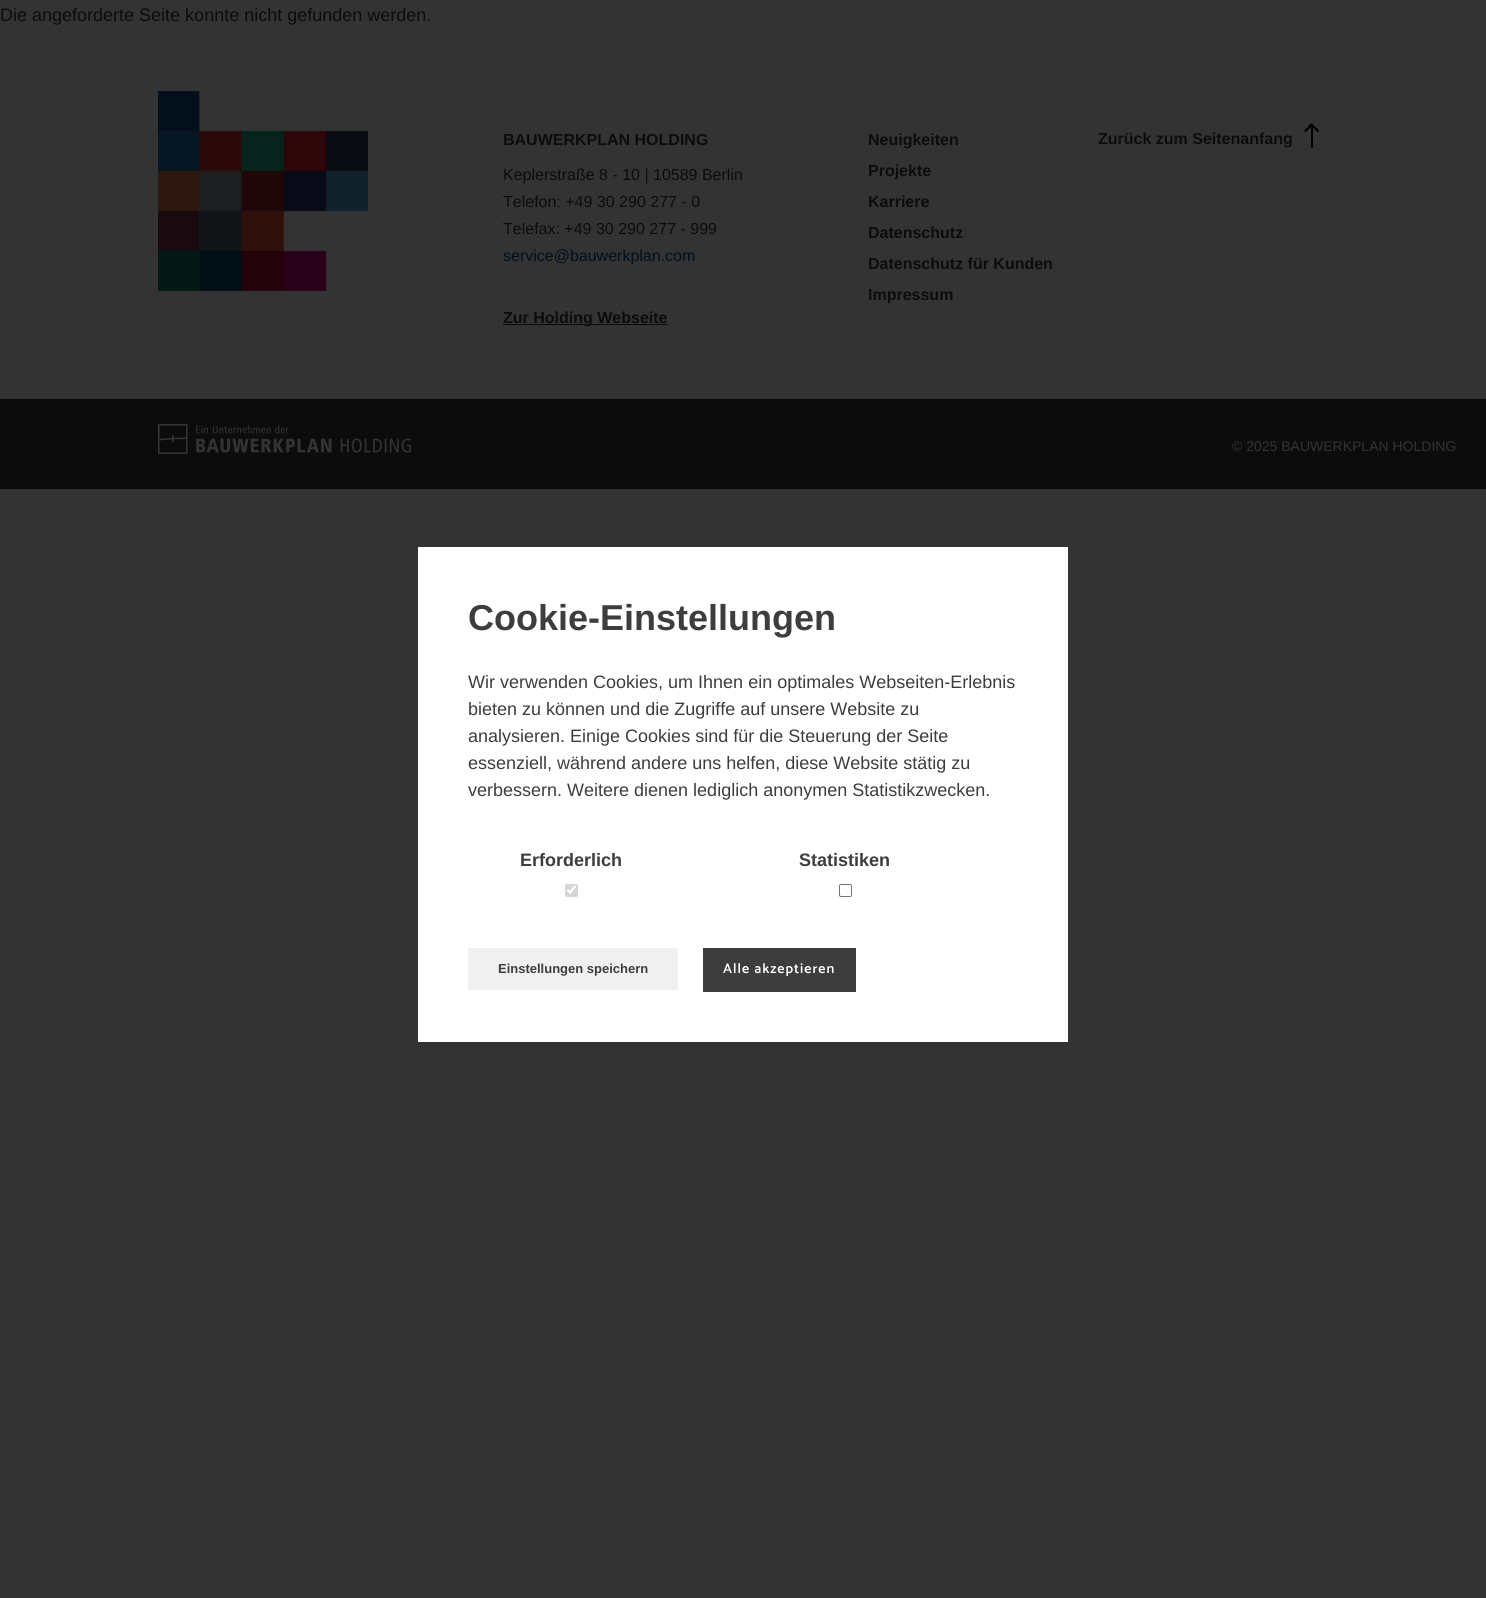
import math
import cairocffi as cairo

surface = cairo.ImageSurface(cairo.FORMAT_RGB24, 1486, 1598)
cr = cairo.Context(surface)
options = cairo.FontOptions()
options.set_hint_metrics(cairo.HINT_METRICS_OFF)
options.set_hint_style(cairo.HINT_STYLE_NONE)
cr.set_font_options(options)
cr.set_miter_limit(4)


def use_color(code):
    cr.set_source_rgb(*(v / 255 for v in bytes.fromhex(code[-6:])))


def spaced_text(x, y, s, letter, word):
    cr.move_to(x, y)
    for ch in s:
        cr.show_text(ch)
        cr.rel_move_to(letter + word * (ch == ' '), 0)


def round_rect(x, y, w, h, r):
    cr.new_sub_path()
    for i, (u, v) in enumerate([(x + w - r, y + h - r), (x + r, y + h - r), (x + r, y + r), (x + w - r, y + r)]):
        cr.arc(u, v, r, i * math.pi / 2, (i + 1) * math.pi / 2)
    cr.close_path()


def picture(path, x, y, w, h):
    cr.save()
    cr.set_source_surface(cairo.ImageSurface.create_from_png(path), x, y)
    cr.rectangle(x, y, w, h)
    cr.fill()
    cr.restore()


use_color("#333333")
cr.paint()
cr.select_font_face("Liberation Sans")
cr.set_font_size(18)
use_color("#0c0c0c")
cr.move_to(0, 21)
cr.show_text("Die angeforderte Seite konnte nicht gefunden werden.")
picture("img1.png", 158, 91, 210, 200)
cr.select_font_face("Liberation Sans", cairo.FONT_SLANT_NORMAL, cairo.FONT_WEIGHT_BOLD)
cr.set_font_size(16)
cr.move_to(503, 145)
cr.show_text("BAUWERKPLAN HOLDING")
cr.select_font_face("Liberation Sans")
cr.move_to(503, 180)
cr.show_text("Keplerstraße 8 - 10 | 10589 Berlin")
cr.move_to(503, 207)
cr.show_text("Telefon: +49 30 290 277 - 0")
cr.move_to(503, 234)
cr.show_text("Telefax: +49 30 290 277 - 999")
use_color("#000f1d")
cr.move_to(503, 261)
cr.show_text("service@bauwerkplan.com")
use_color("#0c0c0c")
cr.rectangle(503, 324, 165, 1)
cr.fill()
cr.select_font_face("Liberation Sans", cairo.FONT_SLANT_NORMAL, cairo.FONT_WEIGHT_BOLD)
cr.move_to(503, 323)
cr.show_text("Zur Holding Webseite")
cr.move_to(868, 145)
cr.show_text("Neuigkeiten")
cr.move_to(868, 176)
cr.show_text("Projekte")
cr.move_to(868, 207)
cr.show_text("Karriere")
cr.move_to(868, 238)
cr.show_text("Datenschutz")
cr.move_to(868, 269)
cr.show_text("Datenschutz für Kunden")
cr.move_to(868, 300)
cr.show_text("Impressum")
cr.move_to(1098, 144)
cr.show_text("Zurück zum Seitenanfang")
use_color("#000000")
cr.new_path()
cr.move_to(1312, 124)
cr.line_to(1313, 124)
cr.line_to(1313, 125)
cr.curve_to(1314, 126, 1320, 130, 1319, 132)
cr.curve_to(1317, 133, 1314, 128.5, 1313, 127)
cr.line_to(1313, 147.5)
cr.line_to(1311, 147.5)
cr.line_to(1311, 127)
cr.line_to(1306, 132)
cr.line_to(1305, 132)
cr.curve_to(1303, 130, 1307, 128, 1308, 127)
cr.curve_to(1308, 126, 1311, 122, 1312, 124)
cr.close_path()
cr.fill()
use_color("#0c0c0c")
cr.rectangle(0, 399, 1486, 90)
cr.fill()
picture("img2.png", 158, 424, 253, 30)
cr.select_font_face("Liberation Sans")
cr.set_font_size(14)
use_color("#333333")
cr.move_to(1232, 451)
cr.show_text("© 2025 BAUWERKPLAN HOLDING")
use_color("#ffffff")
cr.rectangle(418, 547, 650, 495)
cr.fill()
cr.select_font_face("Liberation Sans", cairo.FONT_SLANT_NORMAL, cairo.FONT_WEIGHT_BOLD)
cr.set_font_size(36)
use_color("#3d3d3d")
cr.move_to(468, 630)
cr.show_text("Cookie-Einstellungen")
cr.select_font_face("Liberation Sans")
cr.set_font_size(18)
cr.move_to(468, 688)
cr.show_text("Wir verwenden Cookies, um Ihnen ein optimales Webseiten-Erlebnis")
cr.move_to(468, 715)
cr.show_text("bieten zu können und die Zugriffe auf unsere Website zu")
cr.move_to(468, 742)
cr.show_text("analysieren. Einige Cookies sind für die Steuerung der Seite")
cr.move_to(468, 769)
cr.show_text("essenziell, während andere uns helfen, diese Website stätig zu")
cr.move_to(468, 796)
cr.show_text("verbessern. Weitere dienen lediglich anonymen Statistikzwecken.")
cr.select_font_face("Liberation Sans", cairo.FONT_SLANT_NORMAL, cairo.FONT_WEIGHT_BOLD)
cr.move_to(520, 866)
cr.show_text("Erforderlich")
cr.move_to(799, 866)
cr.show_text("Statistiken")
use_color("#d6d6d6")
round_rect(565, 884, 13, 13, 2)
cr.fill()
cr.new_path()
cr.move_to(567.5, 890)
cr.line_to(570, 892.5)
cr.line_to(575.5, 886)
use_color("#ffffff")
cr.set_line_width(2.1)
cr.stroke()
round_rect(839.5, 884.5, 12, 12, 1.5)
use_color("#767676")
cr.set_line_width(1)
cr.stroke()
use_color("#f0f0f0")
cr.rectangle(468, 948, 210, 42)
cr.fill()
cr.set_font_size(13)
use_color("#3d3d3d")
cr.move_to(498, 973)
cr.show_text("Einstellungen speichern")
cr.rectangle(703, 948, 153, 44)
cr.fill()
cr.select_font_face("Catamaran SemiBold")
cr.set_font_size(14)
use_color("#ffffff")
spaced_text(723, 973, "Alle akzeptieren", 1, 0)
surface.write_to_png("result.png")
